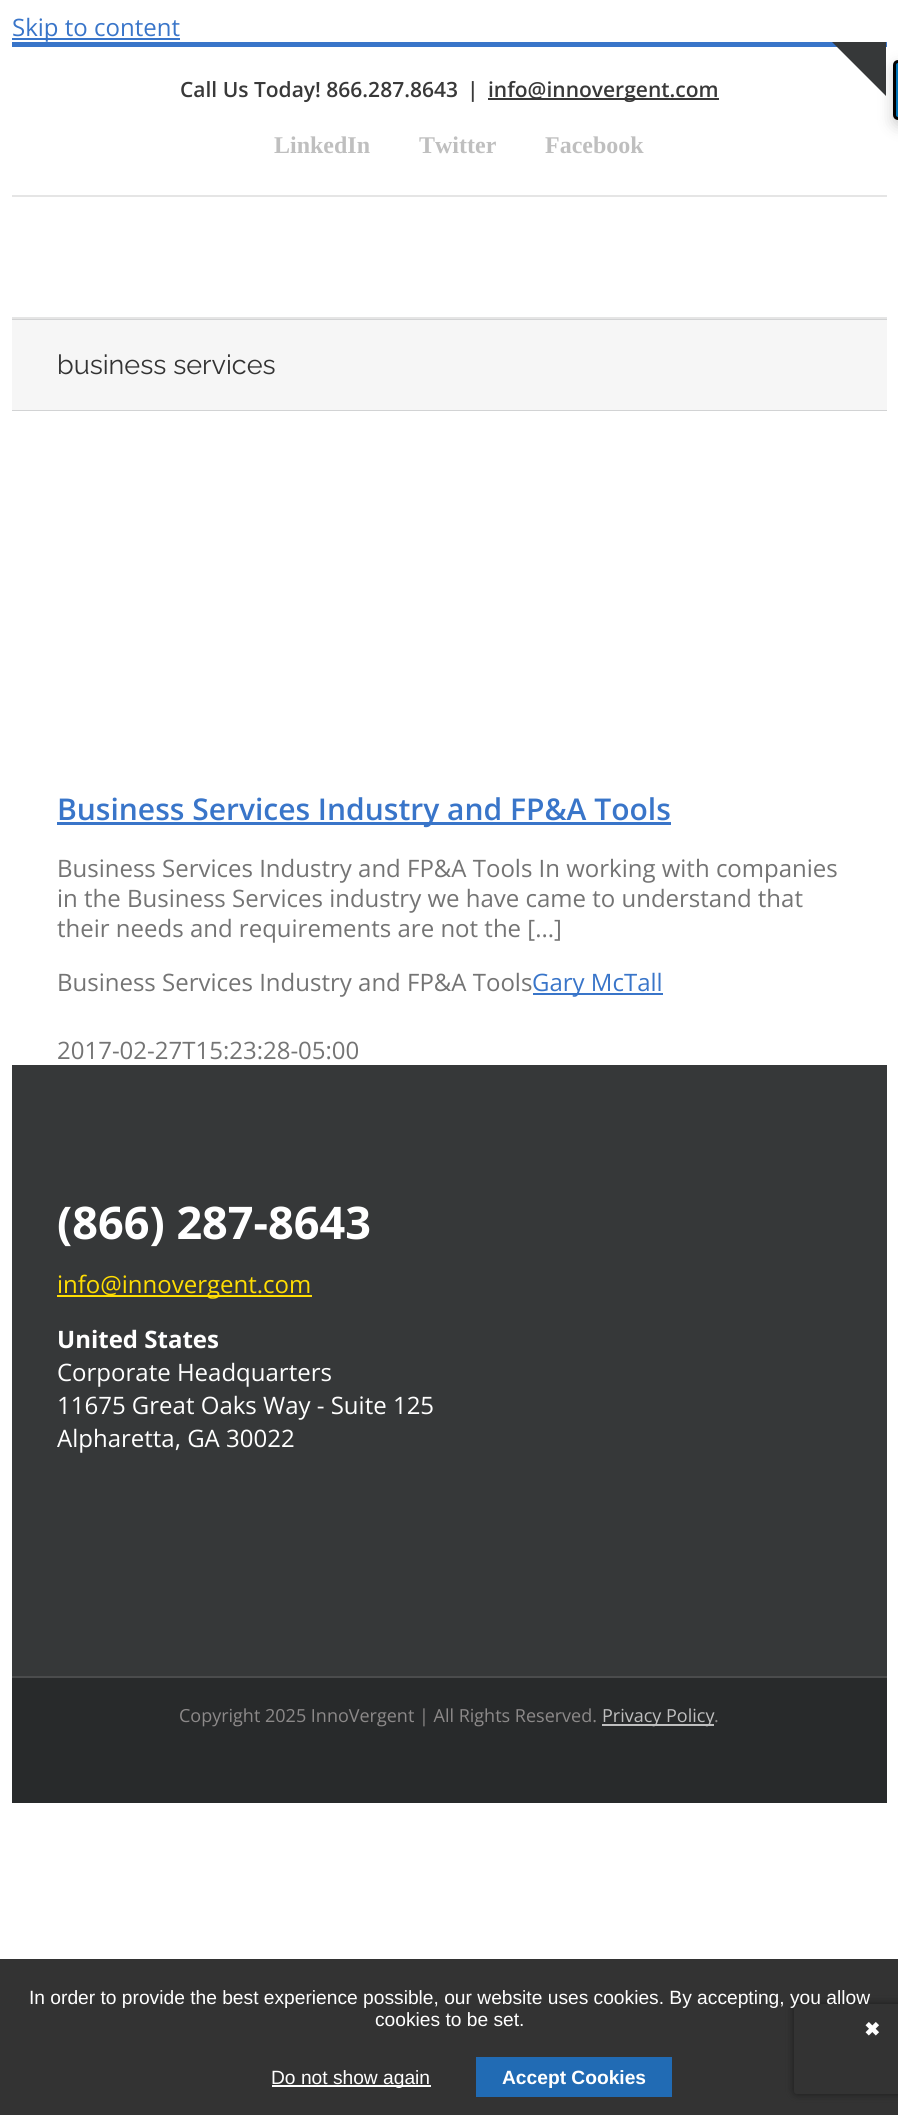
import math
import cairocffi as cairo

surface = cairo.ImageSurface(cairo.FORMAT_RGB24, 898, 2115)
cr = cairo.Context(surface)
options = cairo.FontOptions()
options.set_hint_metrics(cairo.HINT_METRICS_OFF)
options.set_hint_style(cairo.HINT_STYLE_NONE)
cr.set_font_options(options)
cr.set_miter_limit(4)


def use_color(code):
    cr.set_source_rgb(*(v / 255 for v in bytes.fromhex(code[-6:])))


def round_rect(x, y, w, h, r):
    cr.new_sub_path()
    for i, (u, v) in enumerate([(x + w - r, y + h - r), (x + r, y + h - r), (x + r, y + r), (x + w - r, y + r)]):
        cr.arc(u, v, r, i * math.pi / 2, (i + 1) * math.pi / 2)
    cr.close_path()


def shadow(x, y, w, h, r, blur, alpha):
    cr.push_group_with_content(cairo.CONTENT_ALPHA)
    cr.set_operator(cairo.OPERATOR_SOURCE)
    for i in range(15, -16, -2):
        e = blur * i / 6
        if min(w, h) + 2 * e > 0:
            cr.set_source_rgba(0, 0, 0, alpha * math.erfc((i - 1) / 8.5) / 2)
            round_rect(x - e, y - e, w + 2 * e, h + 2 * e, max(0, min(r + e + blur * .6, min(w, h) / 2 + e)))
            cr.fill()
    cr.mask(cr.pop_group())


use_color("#ffffff")
cr.paint()
use_color("#333333")
cr.rectangle(0, 1959, 898, 156)
cr.fill()
use_color("#3975c9")
cr.rectangle(12, 38, 168, 2)
cr.fill()
cr.select_font_face("Open Sans")
cr.set_font_size(24)
cr.move_to(12, 36)
cr.show_text("Skip to content")
cr.rectangle(12, 42, 875, 5)
cr.fill()
use_color("#363839")
cr.new_path()
cr.move_to(832, 42)
cr.line_to(886, 42)
cr.line_to(886, 96)
cr.close_path()
cr.fill()
use_color("#e5e5e5")
cr.rectangle(12, 195, 875, 2)
cr.fill()
cr.select_font_face("Open Sans SemiBold")
cr.set_font_size(21)
use_color("#393939")
cr.move_to(180, 97)
cr.show_text("Call Us Today! 866.287.8643")
cr.move_to(467, 97)
cr.show_text("|")
cr.rectangle(488, 98, 231, 2)
cr.fill()
cr.move_to(488, 97)
cr.show_text("info@innovergent.com")
cr.select_font_face("Liberation Serif", cairo.FONT_SLANT_NORMAL, cairo.FONT_WEIGHT_BOLD)
cr.set_font_size(24)
use_color("#bfbfbf")
cr.move_to(274, 153)
cr.show_text("LinkedIn")
cr.move_to(419, 153)
cr.show_text("Twitter")
cr.move_to(545, 153)
cr.show_text("Facebook")
use_color("#e5e5e5")
cr.rectangle(12, 317, 875, 2)
cr.fill()
use_color("#f6f6f6")
cr.rectangle(12, 320, 875, 90)
cr.fill()
use_color("#d2d3d4")
cr.rectangle(12, 319, 875, 1)
cr.fill()
cr.rectangle(12, 410, 875, 1)
cr.fill()
cr.select_font_face("Raleway")
cr.set_font_size(27)
use_color("#333333")
cr.move_to(57, 374)
cr.show_text("business services")
use_color("#3975c9")
cr.rectangle(57, 822, 614, 3)
cr.fill()
cr.select_font_face("Open Sans SemiBold")
cr.set_font_size(30)
cr.move_to(57, 820)
cr.show_text("Business Services Industry and FP&A Tools")
cr.select_font_face("Open Sans")
cr.set_font_size(24)
use_color("#747474")
cr.move_to(57, 877)
cr.show_text("Business Services Industry and FP&A Tools In working with companies")
cr.move_to(57, 907)
cr.show_text("in the Business Services industry we have came to understand that")
cr.move_to(57, 937)
cr.show_text("their needs and requirements are not the [...]")
cr.move_to(57, 991)
cr.show_text("Business Services Industry and FP&A Tools")
use_color("#3975c9")
cr.rectangle(533, 993, 130, 2)
cr.fill()
cr.move_to(532, 991)
cr.show_text("Gary McTall")
use_color("#747474")
cr.move_to(57, 1059)
cr.show_text("2017-02-27T15:23:28-05:00")
use_color("#363839")
cr.rectangle(12, 1065, 875, 611)
cr.fill()
cr.select_font_face("Open Sans", cairo.FONT_SLANT_NORMAL, cairo.FONT_WEIGHT_BOLD)
cr.set_font_size(45)
use_color("#ffffff")
cr.move_to(57, 1239)
cr.show_text("(866) 287-8643")
use_color("#ffdd02")
cr.rectangle(57, 1295, 255, 2)
cr.fill()
cr.select_font_face("Open Sans")
cr.set_font_size(24)
cr.move_to(57, 1293)
cr.show_text("info@innovergent.com")
cr.select_font_face("Open Sans", cairo.FONT_SLANT_NORMAL, cairo.FONT_WEIGHT_BOLD)
use_color("#ffffff")
cr.move_to(57, 1348)
cr.show_text("United States")
cr.select_font_face("Open Sans")
cr.move_to(57, 1381)
cr.show_text("Corporate Headquarters")
cr.move_to(57, 1414)
cr.show_text("11675 Great Oaks Way - Suite 125")
cr.move_to(57, 1447)
cr.show_text("Alpharetta, GA 30022")
use_color("#282a2b")
cr.rectangle(12, 1678, 875, 125)
cr.fill()
use_color("#4b4c4d")
cr.rectangle(12, 1676, 875, 2)
cr.fill()
cr.set_font_size(18)
use_color("#8c8989")
cr.move_to(179, 1722)
cr.show_text("Copyright 2025 InnoVergent | All Rights Reserved.")
use_color("#bfbfbf")
cr.rectangle(602, 1724, 112, 2)
cr.fill()
cr.move_to(602, 1722)
cr.show_text("Privacy Policy")
use_color("#8c8989")
cr.move_to(714, 1722)
cr.show_text(".")
use_color("#000000")
shadow(893, 66, 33, 60, 5, 7.5, 0.2)
use_color("#0073b7")
cr.new_path()
cr.move_to(898, 61.5)
cr.line_to(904.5, 61.5)
cr.line_to(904.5, 118.5)
cr.line_to(898, 118.5)
cr.curve_to(896, 118.5, 894.5, 117, 894.5, 115)
cr.line_to(894.5, 65)
cr.curve_to(894.5, 63, 896, 61.5, 898, 61.5)
cr.close_path()
cr.fill_preserve()
use_color("#000000")
cr.set_line_width(3)
cr.stroke()
cr.save()
cr.set_fill_rule(cairo.FILL_RULE_EVEN_ODD)
cr.new_path()
cr.move_to(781, 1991)
cr.line_to(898, 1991)
cr.line_to(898, 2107)
cr.line_to(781, 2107)
cr.close_path()
cr.move_to(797, 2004)
cr.line_to(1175, 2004)
cr.curve_to(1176.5, 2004, 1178, 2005.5, 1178, 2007)
cr.line_to(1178, 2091)
cr.curve_to(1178, 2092.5, 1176.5, 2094, 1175, 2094)
cr.line_to(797, 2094)
cr.curve_to(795.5, 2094, 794, 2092.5, 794, 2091)
cr.line_to(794, 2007)
cr.curve_to(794, 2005.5, 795.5, 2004, 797, 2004)
cr.close_path()
cr.clip()
use_color("#1a1a1a")
shadow(794, 2004, 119, 90, 3, 4, 1)
cr.restore()
cr.select_font_face("Liberation Sans")
cr.set_font_size(19.2)
use_color("#ffffff")
cr.move_to(29, 2004)
cr.show_text("In order to provide the best experience possible, our website uses cookies. By accepting, you allow")
cr.move_to(375, 2026)
cr.show_text("cookies to be set.")
cr.select_font_face("DejaVu Sans", cairo.FONT_SLANT_NORMAL, cairo.FONT_WEIGHT_BOLD)
cr.move_to(864, 2036)
cr.show_text("✖")
cr.rectangle(272, 2085, 159, 2)
cr.fill()
cr.select_font_face("Liberation Sans")
cr.move_to(271, 2084)
cr.show_text("Do not show again")
use_color("#216bb4")
cr.rectangle(476, 2057, 196, 40)
cr.fill()
cr.select_font_face("Liberation Sans", cairo.FONT_SLANT_NORMAL, cairo.FONT_WEIGHT_BOLD)
use_color("#ffffff")
cr.move_to(502, 2084)
cr.show_text("Accept Cookies")
surface.write_to_png("result.png")
